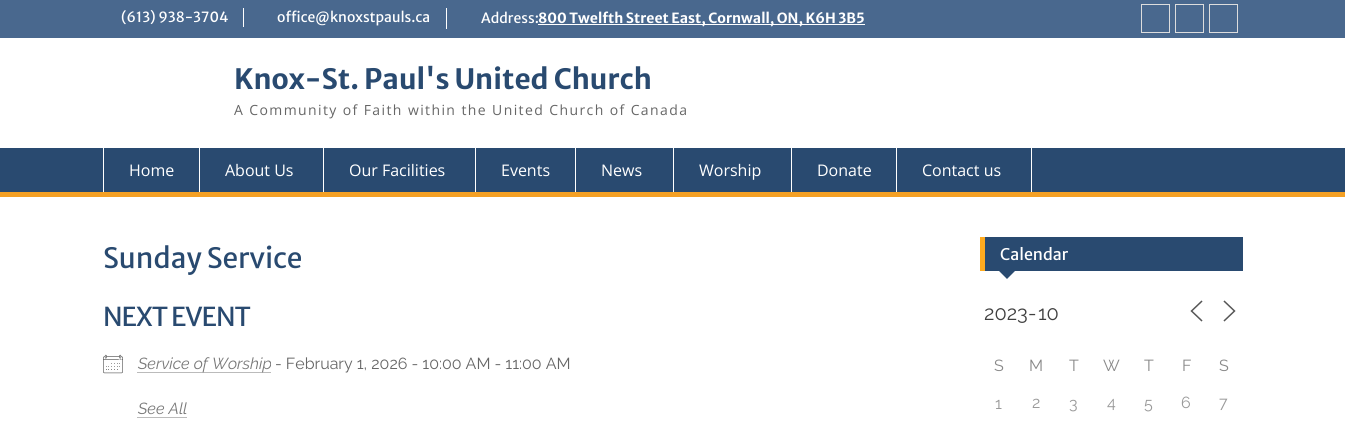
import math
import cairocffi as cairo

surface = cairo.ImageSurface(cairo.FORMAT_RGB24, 1345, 423)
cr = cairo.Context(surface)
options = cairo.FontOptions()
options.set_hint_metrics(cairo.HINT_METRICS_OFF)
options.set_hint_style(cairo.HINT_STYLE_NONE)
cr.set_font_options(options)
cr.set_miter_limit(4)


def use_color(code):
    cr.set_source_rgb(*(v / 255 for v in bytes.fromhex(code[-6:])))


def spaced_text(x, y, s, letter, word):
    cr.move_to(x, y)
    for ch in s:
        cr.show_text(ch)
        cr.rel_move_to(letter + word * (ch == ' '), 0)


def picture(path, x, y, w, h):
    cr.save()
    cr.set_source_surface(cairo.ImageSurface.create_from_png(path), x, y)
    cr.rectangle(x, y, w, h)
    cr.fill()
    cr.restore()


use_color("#ffffff")
cr.paint()
use_color("#49688e")
cr.rectangle(0, 0, 1345, 38)
cr.fill()
cr.select_font_face("Merriweather Sans")
cr.set_font_size(14)
use_color("#ffffff")
cr.move_to(121, 22)
cr.show_text("(613) 938-3704")
cr.rectangle(243, 8, 1, 19)
cr.fill()
cr.move_to(277, 22)
cr.show_text("office@knoxstpauls.ca")
cr.rectangle(446, 8, 1, 21)
cr.fill()
cr.move_to(481, 23)
cr.show_text("Address:")
cr.rectangle(538, 24, 327, 1)
cr.fill()
cr.select_font_face("Merriweather Sans", cairo.FONT_SLANT_NORMAL, cairo.FONT_WEIGHT_BOLD)
cr.move_to(538, 23)
cr.show_text("800 Twelfth Street East, Cornwall, ON, K6H 3B5")
cr.rectangle(1141.5, 4.5, 28, 28)
use_color("#dddddd")
cr.set_line_width(1)
cr.stroke()
cr.rectangle(1175.5, 4.5, 28, 28)
cr.stroke()
cr.rectangle(1209.5, 4.5, 28, 28)
cr.stroke()
cr.set_font_size(28)
use_color("#294a70")
cr.move_to(234, 89)
cr.show_text("Knox-St. Paul's United Church")
cr.select_font_face("Open Sans")
cr.set_font_size(14)
use_color("#666666")
spaced_text(234, 115, "A Community of Faith within the United Church of Canada", 1.4, 0)
use_color("#294a70")
cr.rectangle(0, 148, 1345, 44)
cr.fill()
use_color("#f4a024")
cr.rectangle(0, 192, 1345, 5)
cr.fill()
use_color("#ffffff")
cr.rectangle(199, 148, 1, 44)
cr.fill()
cr.rectangle(103, 148, 1, 44)
cr.fill()
cr.set_font_size(16)
cr.move_to(129, 176)
cr.show_text("Home")
cr.rectangle(323, 148, 1, 44)
cr.fill()
cr.move_to(225, 176)
cr.show_text("About Us")
cr.rectangle(475, 148, 1, 44)
cr.fill()
cr.move_to(349, 176)
cr.show_text("Our Facilities")
cr.rectangle(575, 148, 1, 44)
cr.fill()
cr.move_to(501, 176)
cr.show_text("Events")
cr.rectangle(673, 148, 1, 44)
cr.fill()
cr.move_to(601, 176)
cr.show_text("News")
cr.rectangle(791, 148, 1, 44)
cr.fill()
cr.move_to(699, 176)
cr.show_text("Worship")
cr.rectangle(896, 148, 1, 44)
cr.fill()
cr.move_to(817, 176)
cr.show_text("Donate")
cr.rectangle(1031, 148, 1, 44)
cr.fill()
cr.move_to(922, 176)
cr.show_text("Contact us")
cr.select_font_face("Merriweather Sans")
cr.set_font_size(28)
use_color("#294a70")
cr.move_to(103, 268)
cr.show_text("Sunday Service")
cr.set_font_size(26)
spaced_text(103, 326, "NEXT EVENT", -1, 0)
picture("img1.png", 103, 354, 20, 20)
cr.new_path()
cr.move_to(137.5, 372.5)
cr.line_to(271.5, 372.5)
use_color("#787878")
cr.set_dash([1, 1])
cr.stroke()
cr.select_font_face("Raleway", cairo.FONT_SLANT_ITALIC)
cr.set_font_size(16)
cr.move_to(138, 369)
cr.show_text("Service of Worship")
cr.select_font_face("Raleway")
use_color("#666666")
cr.move_to(275, 369)
cr.show_text("- February 1, 2026 - 10:00 AM - 11:00 AM")
cr.select_font_face("Raleway", cairo.FONT_SLANT_ITALIC)
use_color("#787878")
cr.move_to(138, 414)
cr.show_text("See All")
cr.new_path()
cr.move_to(137.5, 417.5)
cr.line_to(187, 417.5)
cr.stroke()
use_color("#294a70")
cr.rectangle(985, 237, 258, 34)
cr.fill()
use_color("#ffab1f")
cr.rectangle(980, 237, 5, 34)
cr.fill()
cr.select_font_face("Merriweather Sans")
use_color("#ffffff")
cr.move_to(1000, 260)
cr.show_text("Calendar")
use_color("#294a70")
cr.new_path()
cr.move_to(998, 270)
cr.line_to(1016, 270)
cr.line_to(1007, 279)
cr.close_path()
cr.fill()
cr.select_font_face("Raleway")
cr.set_font_size(20)
use_color("#404040")
cr.move_to(984, 320)
cr.show_text("2023")
cr.move_to(1028, 320)
cr.show_text("-")
cr.move_to(1038, 320)
cr.show_text("10")
cr.new_path()
cr.move_to(1201.5, 320.5)
cr.line_to(1191.5, 311)
cr.line_to(1201.5, 301.5)
cr.move_to(1224.5, 320.5)
cr.line_to(1234.5, 311)
cr.line_to(1224.5, 301.5)
use_color("#555555")
cr.set_line_width(1.5)
cr.set_line_cap(cairo.LINE_CAP_SQUARE)
cr.set_dash([])
cr.stroke()
cr.set_font_size(16)
use_color("#888888")
cr.move_to(994, 371)
cr.show_text("S")
cr.move_to(1029, 371)
cr.show_text("M")
cr.move_to(1069, 371)
cr.show_text("T")
cr.move_to(1103, 371)
cr.show_text("W")
cr.move_to(1144, 371)
cr.show_text("T")
cr.move_to(1182, 371)
cr.show_text("F")
cr.move_to(1219, 371)
cr.show_text("S")
use_color("#999999")
cr.move_to(995, 409)
cr.show_text("1")
cr.move_to(1032, 408)
cr.show_text("2")
cr.move_to(1069, 409)
cr.show_text("3")
cr.move_to(1107, 408)
cr.show_text("4")
cr.move_to(1144, 409)
cr.show_text("5")
cr.move_to(1181, 408)
cr.show_text("6")
cr.move_to(1219, 408)
cr.show_text("7")
surface.write_to_png("result.png")
